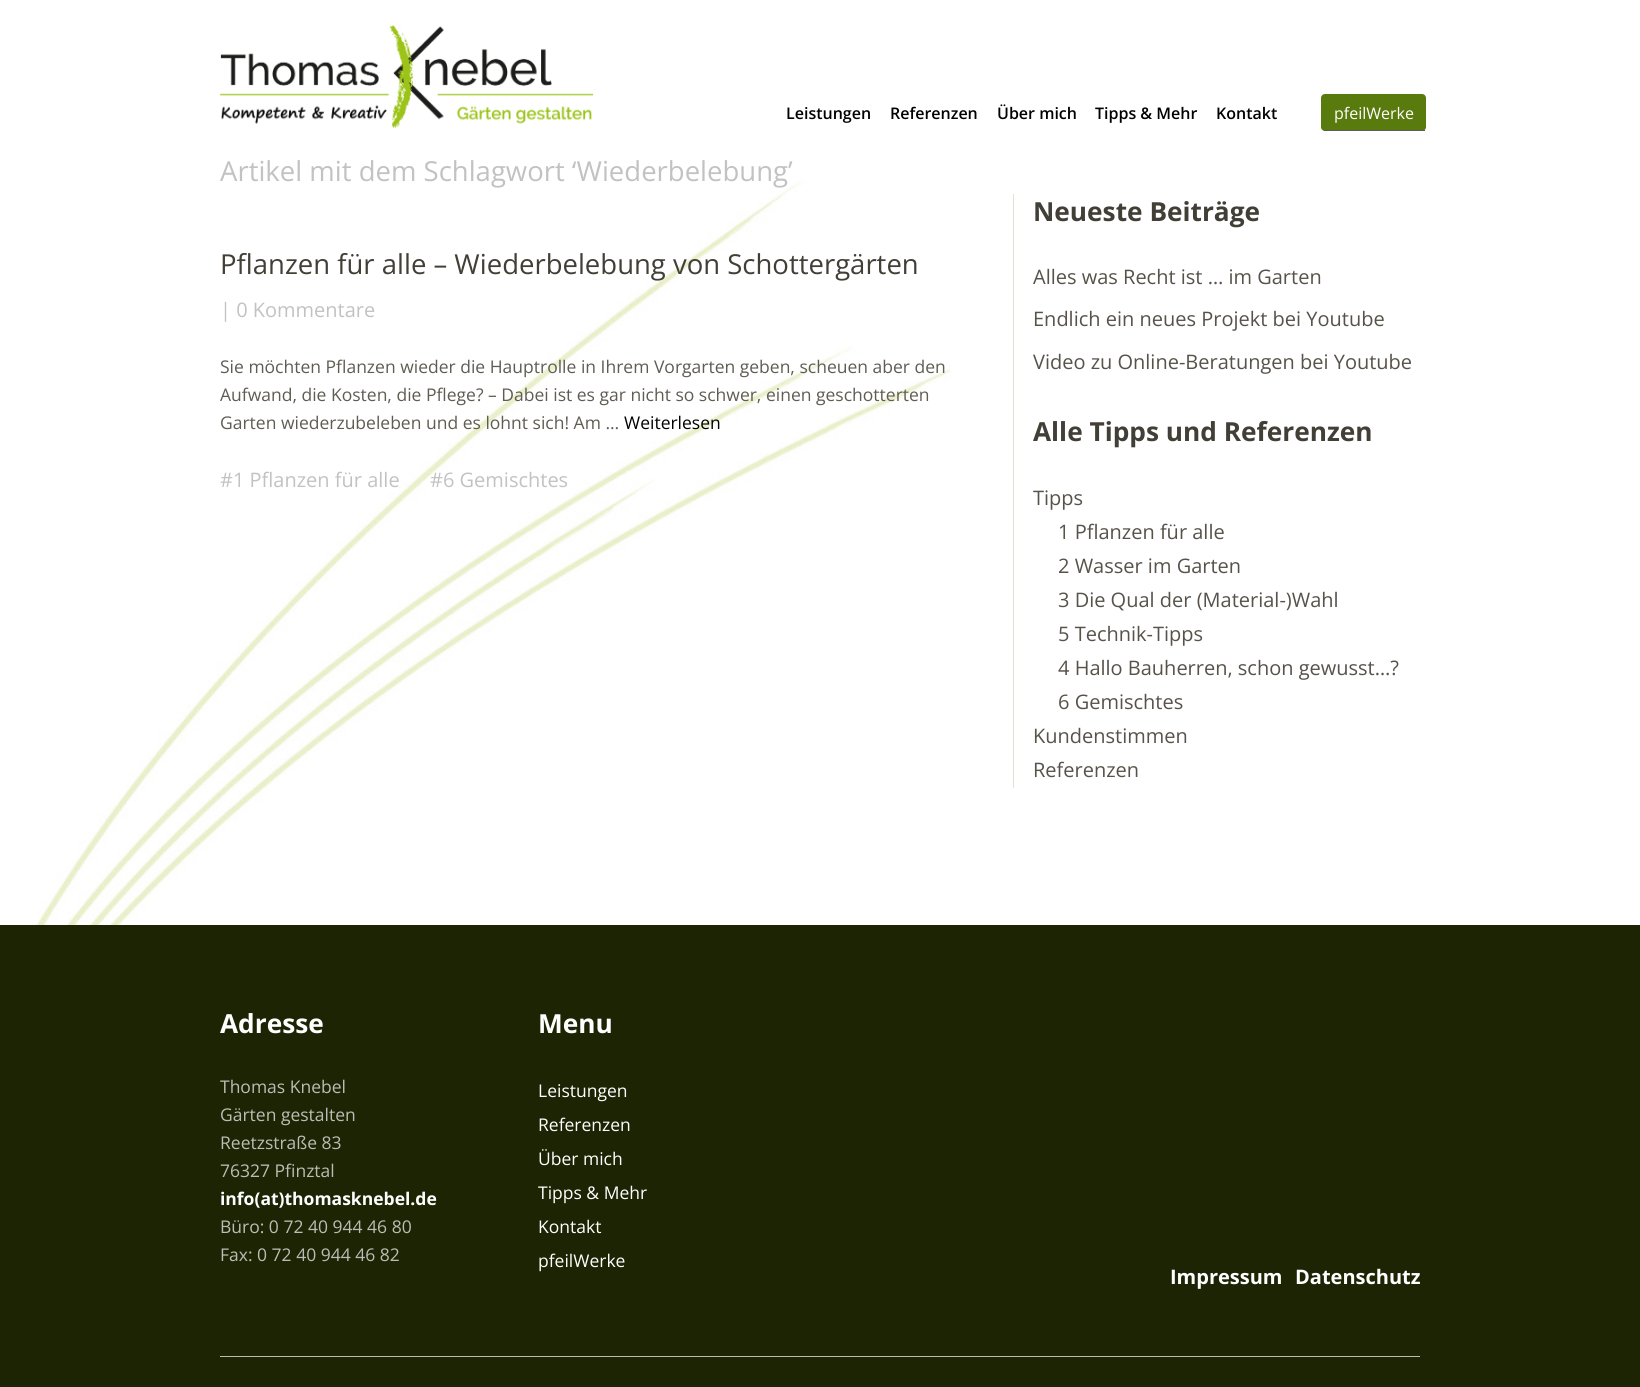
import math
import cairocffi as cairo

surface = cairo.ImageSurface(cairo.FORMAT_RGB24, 1640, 1387)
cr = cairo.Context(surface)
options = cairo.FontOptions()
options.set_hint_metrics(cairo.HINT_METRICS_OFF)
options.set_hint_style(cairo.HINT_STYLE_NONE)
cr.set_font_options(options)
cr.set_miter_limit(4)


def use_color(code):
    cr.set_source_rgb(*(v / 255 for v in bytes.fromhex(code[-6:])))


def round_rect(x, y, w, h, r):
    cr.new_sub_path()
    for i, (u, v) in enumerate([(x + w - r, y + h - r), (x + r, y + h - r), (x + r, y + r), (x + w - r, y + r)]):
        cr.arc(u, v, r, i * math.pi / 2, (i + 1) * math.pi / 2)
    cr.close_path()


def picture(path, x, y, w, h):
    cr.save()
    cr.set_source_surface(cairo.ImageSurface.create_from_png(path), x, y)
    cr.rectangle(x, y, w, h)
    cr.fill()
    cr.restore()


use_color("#ffffff")
cr.paint()
picture("img1.png", 0, 181, 951, 744)
picture("img2.png", 220, 25, 374, 104)
cr.select_font_face("Open Sans SemiBold")
cr.set_font_size(16)
use_color("#000000")
cr.move_to(786, 119)
cr.show_text("Leistungen")
cr.move_to(890, 119)
cr.show_text("Referenzen")
cr.move_to(997, 119)
cr.show_text("Über mich")
cr.move_to(1095, 119)
cr.show_text("Tipps & Mehr")
cr.move_to(1216, 119)
cr.show_text("Kontakt")
use_color("#597a0d")
round_rect(1321, 94, 105, 37, 4)
cr.fill()
use_color("#5f5c52")
cr.rectangle(1324, 130, 101, 1)
cr.fill()
cr.select_font_face("Open Sans")
use_color("#ffffff")
cr.move_to(1334, 119)
cr.show_text("pfeilWerke")
cr.set_font_size(27.5)
use_color("#c2c2c2")
cr.move_to(220, 181)
cr.show_text("Artikel mit dem Schlagwort ‘Wiederbelebung’")
use_color("#423f37")
cr.move_to(220, 274)
cr.show_text("Pflanzen für alle – Wiederbelebung von Schottergärten")
cr.set_font_size(20)
use_color("#c2c2c2")
cr.move_to(220, 317)
cr.show_text("| 0 Kommentare")
cr.set_font_size(17.5)
use_color("#5f5c52")
cr.move_to(220, 373)
cr.show_text("Sie möchten Pflanzen wieder die Hauptrolle in Ihrem Vorgarten geben, scheuen aber den")
cr.move_to(220, 401)
cr.show_text("Aufwand, die Kosten, die Pflege? – Dabei ist es gar nicht so schwer, einen geschotterten")
cr.move_to(220, 429)
cr.show_text("Garten wiederzubeleben und es lohnt sich! Am …")
use_color("#000000")
cr.move_to(624, 429)
cr.show_text("Weiterlesen")
cr.set_font_size(20)
use_color("#c2c2c2")
cr.move_to(220, 487)
cr.show_text("#1 Pflanzen für alle")
cr.move_to(430, 487)
cr.show_text("#6 Gemischtes")
use_color("#e3e0d8")
cr.rectangle(1013, 194, 1, 594)
cr.fill()
cr.select_font_face("Open Sans", cairo.FONT_SLANT_NORMAL, cairo.FONT_WEIGHT_BOLD)
cr.set_font_size(26.25)
use_color("#423f37")
cr.move_to(1033, 221)
cr.show_text("Neueste Beiträge")
cr.select_font_face("Open Sans")
cr.set_font_size(20)
use_color("#57534a")
cr.move_to(1033, 284)
cr.show_text("Alles was Recht ist … im Garten")
cr.move_to(1033, 326)
cr.show_text("Endlich ein neues Projekt bei Youtube")
cr.move_to(1033, 369)
cr.show_text("Video zu Online-Beratungen bei Youtube")
cr.select_font_face("Open Sans", cairo.FONT_SLANT_NORMAL, cairo.FONT_WEIGHT_BOLD)
cr.set_font_size(26.25)
use_color("#423f37")
cr.move_to(1033, 441)
cr.show_text("Alle Tipps und Referenzen")
cr.select_font_face("Open Sans")
cr.set_font_size(20)
use_color("#57534a")
cr.move_to(1033, 505)
cr.show_text("Tipps")
cr.move_to(1058, 539)
cr.show_text("1 Pflanzen für alle")
cr.move_to(1058, 573)
cr.show_text("2 Wasser im Garten")
cr.move_to(1058, 607)
cr.show_text("3 Die Qual der (Material-)Wahl")
cr.move_to(1058, 641)
cr.show_text("5 Technik-Tipps")
cr.move_to(1058, 675)
cr.show_text("4 Hallo Bauherren, schon gewusst…?")
cr.move_to(1058, 709)
cr.show_text("6 Gemischtes")
cr.move_to(1033, 743)
cr.show_text("Kundenstimmen")
cr.move_to(1033, 777)
cr.show_text("Referenzen")
use_color("#1c2404")
cr.rectangle(0, 925, 1640, 462)
cr.fill()
use_color("#bbbdb4")
cr.rectangle(220, 1356, 1200, 1)
cr.fill()
cr.select_font_face("Open Sans", cairo.FONT_SLANT_NORMAL, cairo.FONT_WEIGHT_BOLD)
cr.set_font_size(26.25)
use_color("#ffffff")
cr.move_to(220, 1033)
cr.show_text("Adresse")
cr.select_font_face("Open Sans")
cr.set_font_size(17.5)
use_color("#bbbdb4")
cr.move_to(220, 1093)
cr.show_text("Thomas Knebel")
cr.move_to(220, 1121)
cr.show_text("Gärten gestalten")
cr.move_to(220, 1149)
cr.show_text("Reetzstraße 83")
cr.move_to(220, 1177)
cr.show_text("76327 Pfinztal")
cr.select_font_face("Open Sans", cairo.FONT_SLANT_NORMAL, cairo.FONT_WEIGHT_BOLD)
use_color("#ffffff")
cr.move_to(220, 1205)
cr.show_text("info(at)thomasknebel.de")
cr.select_font_face("Open Sans")
use_color("#bbbdb4")
cr.move_to(220, 1233)
cr.show_text("Büro: 0 72 40 944 46 80")
cr.move_to(220, 1261)
cr.show_text("Fax: 0 72 40 944 46 82")
cr.select_font_face("Open Sans", cairo.FONT_SLANT_NORMAL, cairo.FONT_WEIGHT_BOLD)
cr.set_font_size(26.25)
use_color("#ffffff")
cr.move_to(538, 1033)
cr.show_text("Menu")
cr.select_font_face("Open Sans")
cr.set_font_size(17.5)
cr.move_to(538, 1097)
cr.show_text("Leistungen")
cr.move_to(538, 1131)
cr.show_text("Referenzen")
cr.move_to(538, 1165)
cr.show_text("Über mich")
cr.move_to(538, 1199)
cr.show_text("Tipps & Mehr")
cr.move_to(538, 1233)
cr.show_text("Kontakt")
cr.move_to(538, 1267)
cr.show_text("pfeilWerke")
cr.select_font_face("Open Sans", cairo.FONT_SLANT_NORMAL, cairo.FONT_WEIGHT_BOLD)
cr.set_font_size(20)
cr.move_to(1170, 1284)
cr.show_text("Impressum")
cr.move_to(1295, 1284)
cr.show_text("Datenschutz")
surface.write_to_png("result.png")
